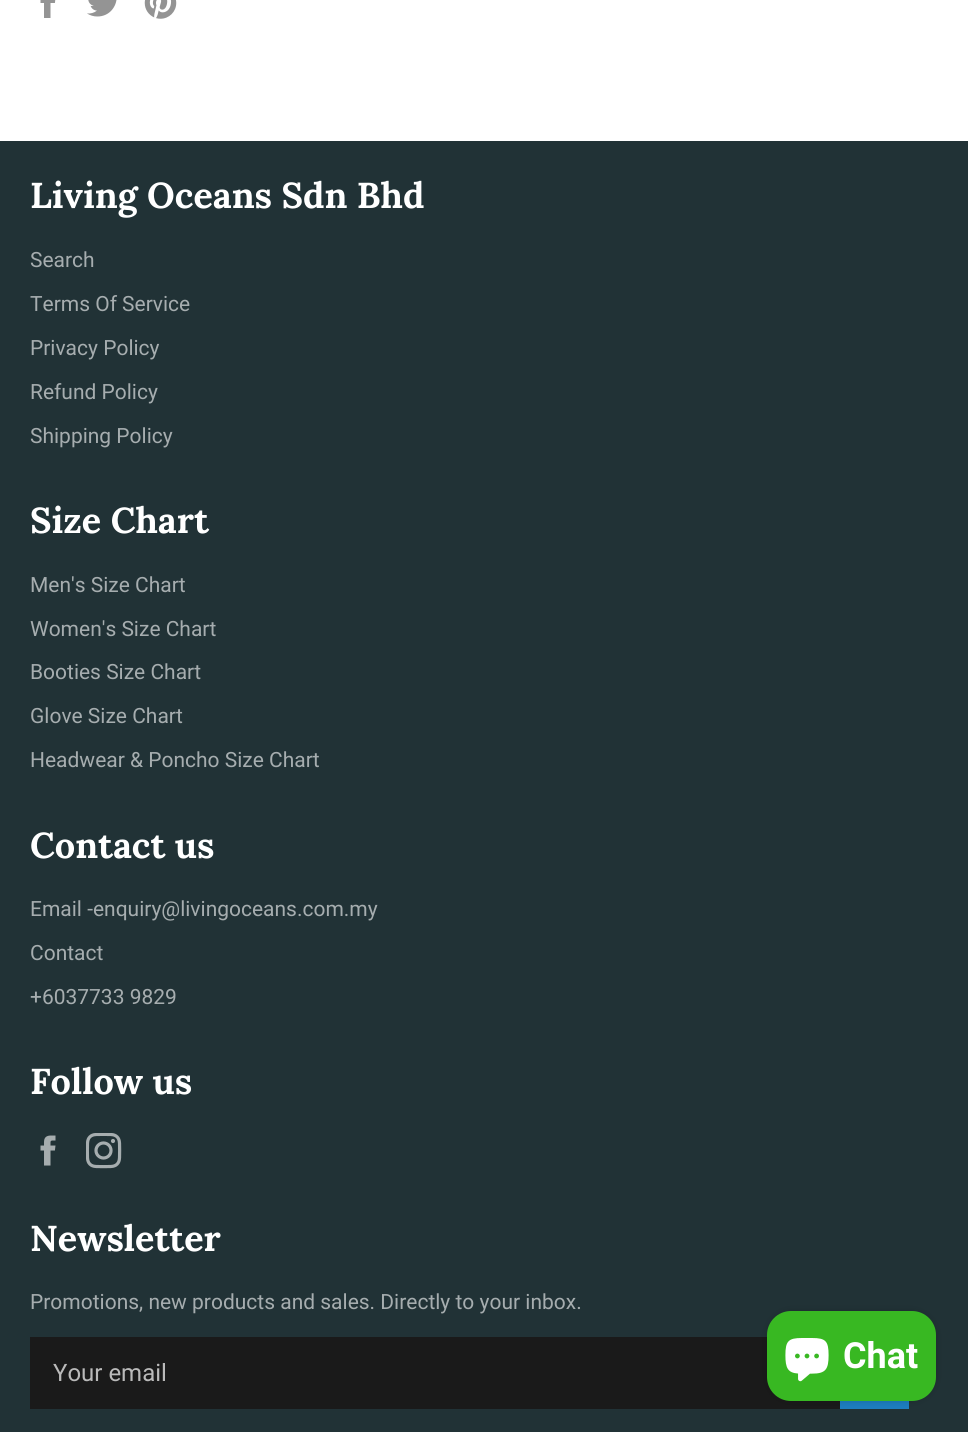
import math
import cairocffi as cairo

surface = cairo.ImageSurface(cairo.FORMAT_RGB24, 968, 1432)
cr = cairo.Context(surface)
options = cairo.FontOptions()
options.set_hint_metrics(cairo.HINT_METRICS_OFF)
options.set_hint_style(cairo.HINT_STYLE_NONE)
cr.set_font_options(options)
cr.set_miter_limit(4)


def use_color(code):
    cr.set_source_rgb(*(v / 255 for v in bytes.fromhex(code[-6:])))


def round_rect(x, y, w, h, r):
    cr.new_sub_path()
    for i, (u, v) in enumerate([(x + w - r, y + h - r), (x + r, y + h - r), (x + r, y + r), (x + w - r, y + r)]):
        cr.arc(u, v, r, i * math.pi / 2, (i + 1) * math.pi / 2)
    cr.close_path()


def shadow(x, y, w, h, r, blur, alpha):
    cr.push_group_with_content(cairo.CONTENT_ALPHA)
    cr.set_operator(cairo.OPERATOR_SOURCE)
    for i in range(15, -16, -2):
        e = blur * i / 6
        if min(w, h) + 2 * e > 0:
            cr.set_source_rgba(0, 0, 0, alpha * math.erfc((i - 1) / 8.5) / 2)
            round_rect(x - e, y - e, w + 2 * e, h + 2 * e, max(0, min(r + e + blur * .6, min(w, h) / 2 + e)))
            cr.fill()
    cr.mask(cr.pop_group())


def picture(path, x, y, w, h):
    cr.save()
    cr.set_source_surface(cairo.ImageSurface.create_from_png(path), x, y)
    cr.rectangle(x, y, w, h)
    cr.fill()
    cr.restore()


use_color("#ffffff")
cr.paint()
picture("img1.png", 40, 0, 16, 18)
picture("img2.png", 87, 0, 30, 17)
picture("img3.png", 144, 0, 33, 19)
use_color("#213236")
cr.rectangle(0, 141, 968, 1291)
cr.fill()
cr.select_font_face("Lora", cairo.FONT_SLANT_NORMAL, cairo.FONT_WEIGHT_BOLD)
cr.set_font_size(36)
use_color("#ffffff")
cr.move_to(30, 208)
cr.show_text("Living Oceans Sdn Bhd")
cr.select_font_face("Roboto")
cr.set_font_size(21)
use_color("#a6adaf")
cr.move_to(30, 267)
cr.show_text("Search")
cr.move_to(30, 311)
cr.show_text("Terms Of Service")
cr.move_to(30, 355)
cr.show_text("Privacy Policy")
cr.move_to(30, 399)
cr.show_text("Refund Policy")
cr.move_to(30, 443)
cr.show_text("Shipping Policy")
cr.select_font_face("Lora", cairo.FONT_SLANT_NORMAL, cairo.FONT_WEIGHT_BOLD)
cr.set_font_size(36)
use_color("#ffffff")
cr.move_to(30, 533)
cr.show_text("Size Chart")
cr.select_font_face("Roboto")
cr.set_font_size(21)
use_color("#a6adaf")
cr.move_to(30, 592)
cr.show_text("Men's Size Chart")
cr.move_to(30, 636)
cr.show_text("Women's Size Chart")
cr.move_to(30, 679)
cr.show_text("Booties Size Chart")
cr.move_to(30, 723)
cr.show_text("Glove Size Chart")
cr.move_to(30, 767)
cr.show_text("Headwear & Poncho Size Chart")
cr.select_font_face("Lora", cairo.FONT_SLANT_NORMAL, cairo.FONT_WEIGHT_BOLD)
cr.set_font_size(36)
use_color("#ffffff")
cr.move_to(30, 858)
cr.show_text("Contact us")
cr.select_font_face("Roboto")
cr.set_font_size(21)
use_color("#a6adaf")
cr.move_to(30, 916)
cr.show_text("Email -enquiry@livingoceans.com.my")
cr.move_to(30, 960)
cr.show_text("Contact")
cr.move_to(30, 1004)
cr.show_text("+6037733 9829")
cr.select_font_face("Lora", cairo.FONT_SLANT_NORMAL, cairo.FONT_WEIGHT_BOLD)
cr.set_font_size(36)
use_color("#ffffff")
cr.move_to(30, 1094)
cr.show_text("Follow us")
picture("img4.png", 40, 1135, 16, 31)
picture("img5.png", 86, 1133, 36, 36)
cr.move_to(30, 1251)
cr.show_text("Newsletter")
cr.select_font_face("Roboto")
cr.set_font_size(21)
use_color("#a6adaf")
cr.move_to(30, 1309)
cr.show_text("Promotions, new products and sales. Directly to your inbox.")
use_color("#1a1a1a")
cr.rectangle(30, 1337, 810, 72)
cr.fill()
cr.set_font_size(24)
use_color("#bababa")
cr.move_to(53, 1381)
cr.show_text("Your email")
use_color("#1d7dc0")
cr.rectangle(840, 1401, 69, 8)
cr.fill()
use_color("#000000")
shadow(767, 1311, 169, 90, 24, 4, 0.15)
use_color("#38b822")
round_rect(767, 1311, 169, 90, 24)
cr.fill()
picture("img6.png", 785, 1338, 44, 44)
cr.select_font_face("Roboto", cairo.FONT_SLANT_NORMAL, cairo.FONT_WEIGHT_BOLD)
cr.set_font_size(36)
use_color("#ffffff")
cr.move_to(843, 1368)
cr.show_text("Chat")
surface.write_to_png("result.png")
